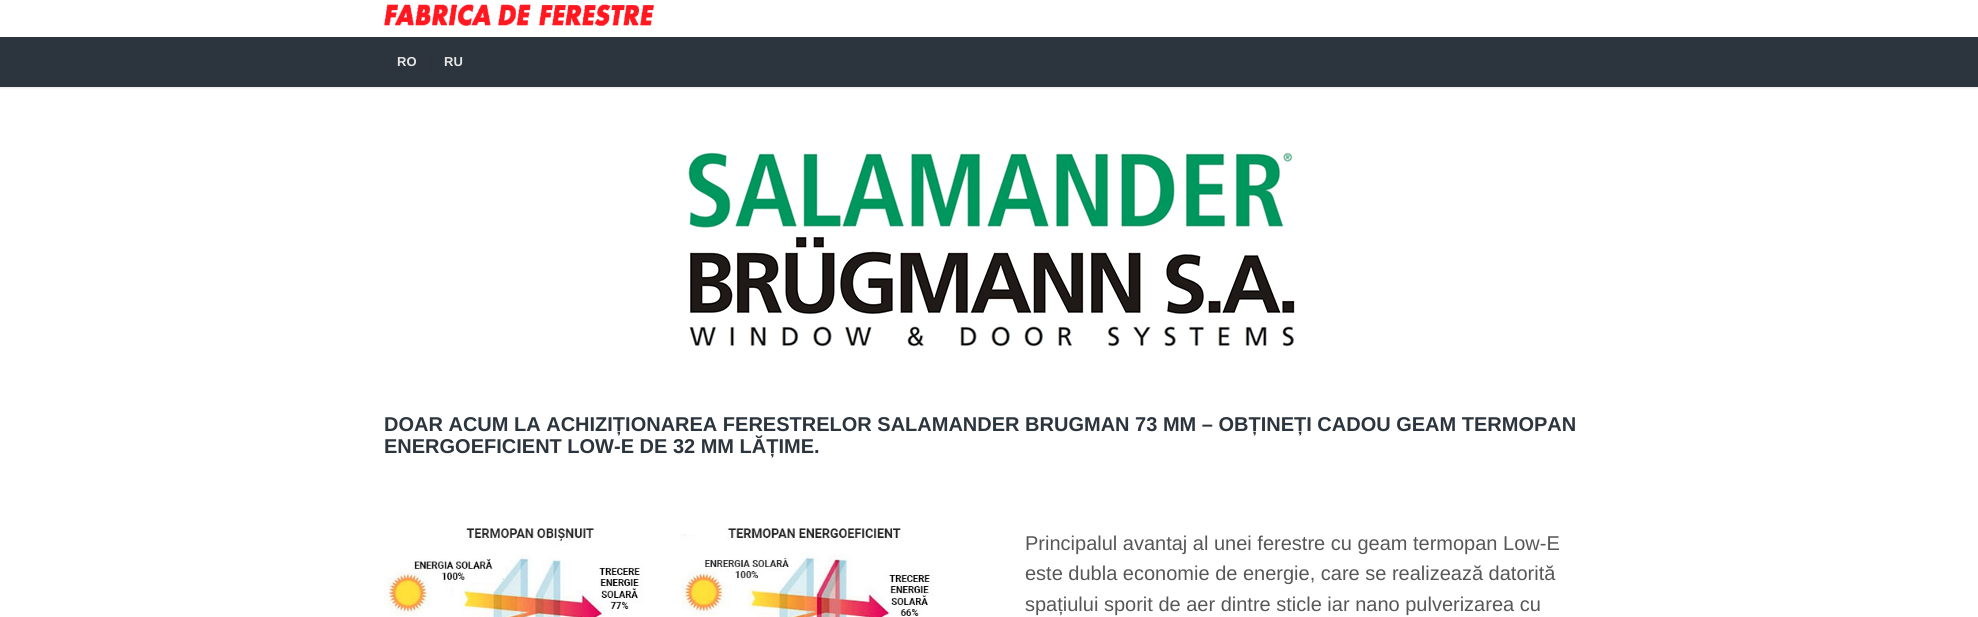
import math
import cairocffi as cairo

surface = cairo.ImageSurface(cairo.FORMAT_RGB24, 1978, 617)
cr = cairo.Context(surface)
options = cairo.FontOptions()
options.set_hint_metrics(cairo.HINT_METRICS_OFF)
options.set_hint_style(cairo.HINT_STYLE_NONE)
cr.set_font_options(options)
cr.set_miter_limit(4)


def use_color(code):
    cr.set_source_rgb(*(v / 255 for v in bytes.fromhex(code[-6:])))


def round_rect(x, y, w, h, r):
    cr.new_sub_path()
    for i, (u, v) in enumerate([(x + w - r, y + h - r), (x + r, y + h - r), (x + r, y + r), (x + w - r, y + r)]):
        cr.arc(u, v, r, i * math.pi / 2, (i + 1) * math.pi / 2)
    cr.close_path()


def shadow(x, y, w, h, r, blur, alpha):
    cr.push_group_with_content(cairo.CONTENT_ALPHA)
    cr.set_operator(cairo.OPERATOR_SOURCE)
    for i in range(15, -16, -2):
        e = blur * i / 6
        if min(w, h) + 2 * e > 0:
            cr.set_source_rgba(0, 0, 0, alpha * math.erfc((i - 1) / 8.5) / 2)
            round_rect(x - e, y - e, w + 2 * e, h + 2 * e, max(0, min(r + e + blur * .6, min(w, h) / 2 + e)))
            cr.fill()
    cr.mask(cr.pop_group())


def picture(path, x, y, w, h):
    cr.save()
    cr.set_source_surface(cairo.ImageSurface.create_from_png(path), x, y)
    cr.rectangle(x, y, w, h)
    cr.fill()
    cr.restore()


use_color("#ffffff")
cr.paint()
use_color("#000000")
shadow(-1, -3, 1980, 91, 0, 1, 0.1)
use_color("#ffffff")
cr.rectangle(0, 0, 1978, 37)
cr.fill()
picture("img1.png", 384, 4, 270, 22)
use_color("#2c353d")
cr.rectangle(0, 37, 1978, 50)
cr.fill()
cr.select_font_face("Liberation Sans", cairo.FONT_SLANT_NORMAL, cairo.FONT_WEIGHT_BOLD)
cr.set_font_size(13)
use_color("#e6e6e6")
cr.move_to(397, 66)
cr.show_text("RO")
cr.move_to(444, 66)
cr.show_text("RU")
use_color("#2c3033")
cr.rectangle(430, 54, 1, 15)
cr.fill()
picture("img2.png", 688, 152, 607, 195)
cr.set_font_size(20)
use_color("#2c353d")
cr.move_to(384, 431)
cr.show_text("DOAR ACUM LA ACHIZIȚIONAREA FERESTRELOR SALAMANDER BRUGMAN 73 MM – OBȚINEȚI CADOU GEAM TERMOPAN")
cr.move_to(384, 453)
cr.show_text("ENERGOEFICIENT LOW-E DE 32 MM LĂȚIME.")
picture("img3.png", 384, 528, 550, 89)
cr.select_font_face("Liberation Sans")
use_color("#575757")
cr.move_to(1025, 550)
cr.show_text("Principalul avantaj al unei ferestre cu geam termopan Low-E")
cr.move_to(1025, 580)
cr.show_text("este dubla economie de energie, care se realizează datorită")
cr.move_to(1025, 611)
cr.show_text("spațiului sporit de aer dintre sticle iar nano pulverizarea cu")
surface.write_to_png("result.png")
